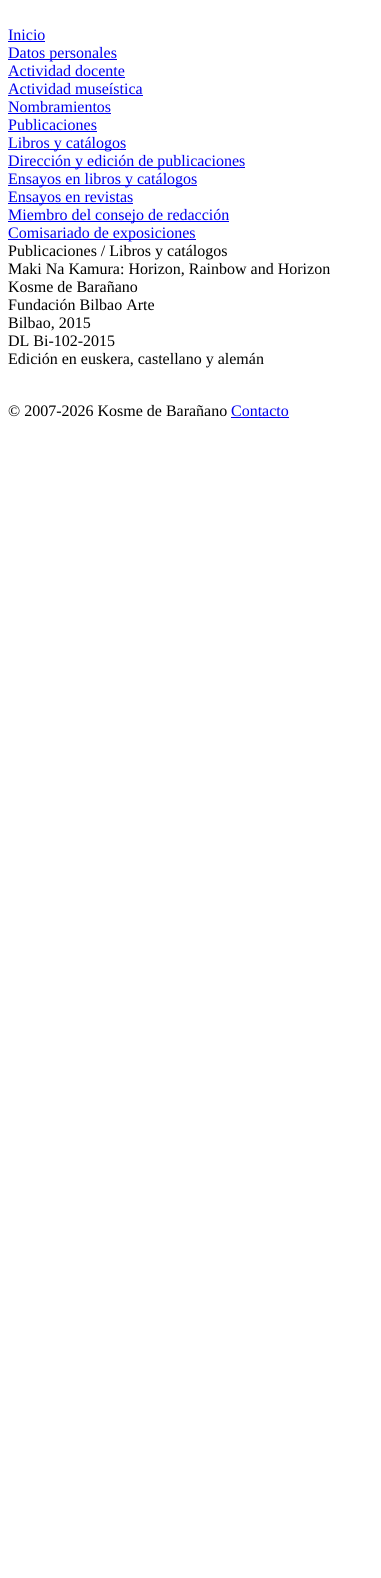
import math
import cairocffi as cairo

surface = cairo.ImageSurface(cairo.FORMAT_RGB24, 381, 1578)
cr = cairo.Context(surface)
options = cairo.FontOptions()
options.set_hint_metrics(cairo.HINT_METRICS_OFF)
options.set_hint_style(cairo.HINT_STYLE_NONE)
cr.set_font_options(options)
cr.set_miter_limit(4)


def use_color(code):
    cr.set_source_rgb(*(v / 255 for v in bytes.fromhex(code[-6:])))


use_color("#ffffff")
cr.paint()
cr.select_font_face("Liberation Serif")
cr.set_font_size(16)
use_color("#0000ee")
cr.move_to(8, 40)
cr.show_text("Inicio")
cr.rectangle(8, 41, 37, 1)
cr.fill()
cr.rectangle(8, 59, 109, 1)
cr.fill()
cr.move_to(8, 58)
cr.show_text("Datos personales")
cr.move_to(8, 76)
cr.show_text("Actividad docente")
cr.rectangle(8, 77, 117, 1)
cr.fill()
cr.move_to(8, 94)
cr.show_text("Actividad museística")
cr.rectangle(8, 95, 135, 1)
cr.fill()
cr.move_to(8, 112)
cr.show_text("Nombramientos")
cr.rectangle(8, 113, 103, 1)
cr.fill()
cr.move_to(8, 130)
cr.show_text("Publicaciones")
cr.rectangle(8, 131, 89, 1)
cr.fill()
cr.rectangle(8, 149, 118, 1)
cr.fill()
cr.move_to(8, 148)
cr.show_text("Libros y catálogos")
cr.rectangle(8, 167, 237, 1)
cr.fill()
cr.move_to(8, 166)
cr.show_text("Dirección y edición de publicaciones")
cr.rectangle(8, 185, 189, 1)
cr.fill()
cr.move_to(8, 184)
cr.show_text("Ensayos en libros y catálogos")
cr.rectangle(8, 203, 125, 1)
cr.fill()
cr.move_to(8, 202)
cr.show_text("Ensayos en revistas")
cr.rectangle(8, 221, 221, 1)
cr.fill()
cr.move_to(8, 220)
cr.show_text("Miembro del consejo de redacción")
cr.rectangle(8, 239, 188, 1)
cr.fill()
cr.move_to(8, 238)
cr.show_text("Comisariado de exposiciones")
use_color("#000000")
cr.move_to(8, 256)
cr.show_text("Publicaciones / Libros y catálogos")
cr.move_to(8, 274)
cr.show_text("Maki Na Kamura: Horizon, Rainbow and Horizon")
cr.move_to(8, 292)
cr.show_text("Kosme de Barañano")
cr.move_to(8, 310)
cr.show_text("Fundación Bilbao Arte")
cr.move_to(8, 328)
cr.show_text("Bilbao, 2015")
cr.move_to(8, 346)
cr.show_text("DL Bi-102-2015")
cr.move_to(8, 364)
cr.show_text("Edición en euskera, castellano y alemán")
cr.move_to(8, 416)
cr.show_text("© 2007-2026 Kosme de Barañano")
use_color("#0000ee")
cr.move_to(231, 416)
cr.show_text("Contacto")
cr.rectangle(231, 417, 58, 1)
cr.fill()
surface.write_to_png("result.png")
